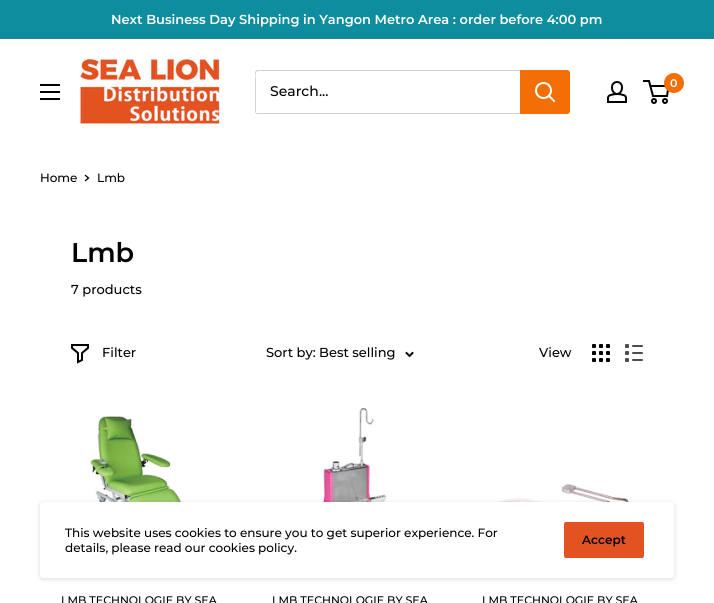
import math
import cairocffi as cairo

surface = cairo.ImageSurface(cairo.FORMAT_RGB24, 714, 603)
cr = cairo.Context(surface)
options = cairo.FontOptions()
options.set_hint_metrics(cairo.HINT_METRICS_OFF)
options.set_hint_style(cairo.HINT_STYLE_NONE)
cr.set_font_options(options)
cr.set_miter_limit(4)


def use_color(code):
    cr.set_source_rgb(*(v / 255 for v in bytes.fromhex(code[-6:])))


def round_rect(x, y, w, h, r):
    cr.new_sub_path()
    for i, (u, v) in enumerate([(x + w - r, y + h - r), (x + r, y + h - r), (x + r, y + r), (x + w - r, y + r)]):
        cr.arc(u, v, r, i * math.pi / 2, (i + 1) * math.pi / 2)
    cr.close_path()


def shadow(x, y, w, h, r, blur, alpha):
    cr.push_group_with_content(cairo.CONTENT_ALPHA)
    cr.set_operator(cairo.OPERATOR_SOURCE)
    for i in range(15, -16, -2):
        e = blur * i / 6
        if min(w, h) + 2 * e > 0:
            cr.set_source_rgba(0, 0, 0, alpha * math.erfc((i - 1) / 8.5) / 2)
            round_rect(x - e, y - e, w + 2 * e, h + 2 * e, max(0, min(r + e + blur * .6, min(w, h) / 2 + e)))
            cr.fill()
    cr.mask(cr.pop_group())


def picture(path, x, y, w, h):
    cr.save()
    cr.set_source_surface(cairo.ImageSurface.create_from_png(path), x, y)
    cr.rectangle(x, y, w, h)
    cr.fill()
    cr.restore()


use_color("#ffffff")
cr.paint()
use_color("#0d8d9e")
cr.rectangle(0, 0, 714, 38)
cr.fill()
use_color("#29828e")
cr.rectangle(0, 38, 714, 1)
cr.fill()
cr.select_font_face("Montserrat SemiBold")
cr.set_font_size(13)
use_color("#ffffff")
cr.move_to(111, 24)
cr.show_text("Next Business Day Shipping in Yangon Metro Area : order before 4:00 pm")
picture("img1.png", 40, 84, 20, 16)
picture("img2.png", 80, 59, 140, 65)
use_color("#d3d2d1")
cr.new_path()
cr.move_to(256, 113)
cr.curve_to(256, 114, 257, 114, 258, 114)
cr.line_to(567, 114)
cr.curve_to(569, 114, 570, 113, 570, 111)
cr.line_to(570, 73)
cr.curve_to(570, 72, 570, 71, 569, 71)
cr.line_to(569, 104)
cr.curve_to(569, 106, 571, 113, 566, 113)
cr.close_path()
cr.fill()
cr.new_path()
cr.move_to(259, 71)
cr.line_to(569, 71)
cr.curve_to(569, 70, 568, 70, 567, 70)
cr.line_to(258, 70)
cr.curve_to(256, 70, 255, 71, 255, 73)
cr.line_to(255, 111)
cr.curve_to(255, 112, 255, 113, 256, 113)
cr.line_to(256, 80)
cr.curve_to(256, 78, 254, 71, 259, 71)
cr.close_path()
cr.fill()
cr.select_font_face("Montserrat Medium")
cr.set_font_size(14)
use_color("#000000")
cr.move_to(270, 96)
cr.show_text("Search...")
use_color("#f36f06")
cr.new_path()
cr.move_to(520, 70)
cr.line_to(567, 70)
cr.curve_to(568.5, 70, 570, 71.5, 570, 73)
cr.line_to(570, 111)
cr.curve_to(570, 112.5, 568.5, 114, 567, 114)
cr.line_to(520, 114)
cr.close_path()
cr.fill()
cr.new_path()
cr.move_to(554, 101)
cr.line_to(549, 96)
use_color("#ffffff")
cr.set_line_cap(cairo.LINE_CAP_SQUARE)
cr.stroke()
cr.arc(543.5, 90.5, 7.5, 0, 2 * math.pi)
cr.set_line_cap(cairo.LINE_CAP_BUTT)
cr.stroke()
picture("img3.png", 607, 81, 20, 22)
cr.arc(654, 101, 2, 0, 2 * math.pi)
use_color("#000000")
cr.stroke()
cr.arc(665, 101, 2, 0, 2 * math.pi)
cr.stroke()
cr.new_path()
cr.move_to(650.5, 86)
cr.line_to(668.5, 86)
cr.line_to(667, 96)
cr.line_to(653, 96)
cr.line_to(649, 81)
cr.line_to(643, 81)
cr.stroke()
use_color("#f36f06")
cr.arc(674, 83, 10, 0, 2 * math.pi)
cr.fill()
cr.select_font_face("Montserrat SemiBold")
cr.set_font_size(11)
use_color("#ffffff")
cr.move_to(670, 87)
cr.show_text("0")
cr.select_font_face("Montserrat Medium")
cr.set_font_size(12)
use_color("#000000")
cr.move_to(40, 182)
cr.show_text("Home")
cr.new_path()
cr.move_to(85.5, 175.5)
cr.line_to(88.5, 178)
cr.line_to(85.5, 180.5)
cr.set_line_width(1.3)
cr.set_line_cap(cairo.LINE_CAP_SQUARE)
cr.stroke()
cr.move_to(97, 182)
cr.show_text("Lmb")
cr.select_font_face("Montserrat SemiBold")
cr.set_font_size(27)
cr.move_to(71, 262)
cr.show_text("Lmb")
cr.select_font_face("Montserrat Medium")
cr.set_font_size(13)
cr.move_to(71, 294)
cr.show_text("7 products")
cr.new_path()
cr.move_to(88, 348)
cr.line_to(82, 353)
cr.line_to(82, 360)
cr.line_to(78, 362)
cr.line_to(78, 353)
cr.line_to(72, 348)
cr.line_to(72, 345)
cr.line_to(88, 345)
cr.close_path()
cr.set_line_width(2)
cr.stroke()
cr.move_to(102, 357)
cr.show_text("Filter")
cr.move_to(266, 357)
cr.show_text("Sort by: Best selling")
cr.new_path()
cr.move_to(412.5, 353)
cr.line_to(409.5, 356)
cr.line_to(406.5, 353)
cr.set_line_width(1.9)
cr.stroke()
cr.move_to(539, 357)
cr.show_text("View")
picture("img4.png", 592, 344, 18, 18)
picture("img5.png", 625, 344, 18, 18)
picture("img6.png", 88, 416, 122, 86)
cr.set_font_size(11)
cr.move_to(61, 604)
cr.show_text("LMB TECHNOLOGIE BY SEA")
picture("img7.png", 315, 408, 86, 94)
cr.move_to(272, 604)
cr.show_text("LMB TECHNOLOGIE BY SEA")
picture("img8.png", 483, 484, 163, 18)
cr.move_to(482, 604)
cr.show_text("LMB TECHNOLOGIE BY SEA")
use_color("#000000")
shadow(39, 502, 636, 78, 4, 2, 0.1)
use_color("#ffffff")
round_rect(40, 502, 634, 76, 3)
cr.fill()
cr.set_font_size(12)
use_color("#000000")
cr.move_to(65, 537)
cr.show_text("This website uses cookies to ensure you to get superior experience. For")
cr.move_to(65, 552)
cr.show_text("details, please read our cookies policy.")
use_color("#e35321")
round_rect(564, 522, 80, 36, 2)
cr.fill()
cr.select_font_face("Montserrat SemiBold")
use_color("#000000")
cr.move_to(582, 544)
cr.show_text("Accept")
surface.write_to_png("result.png")
